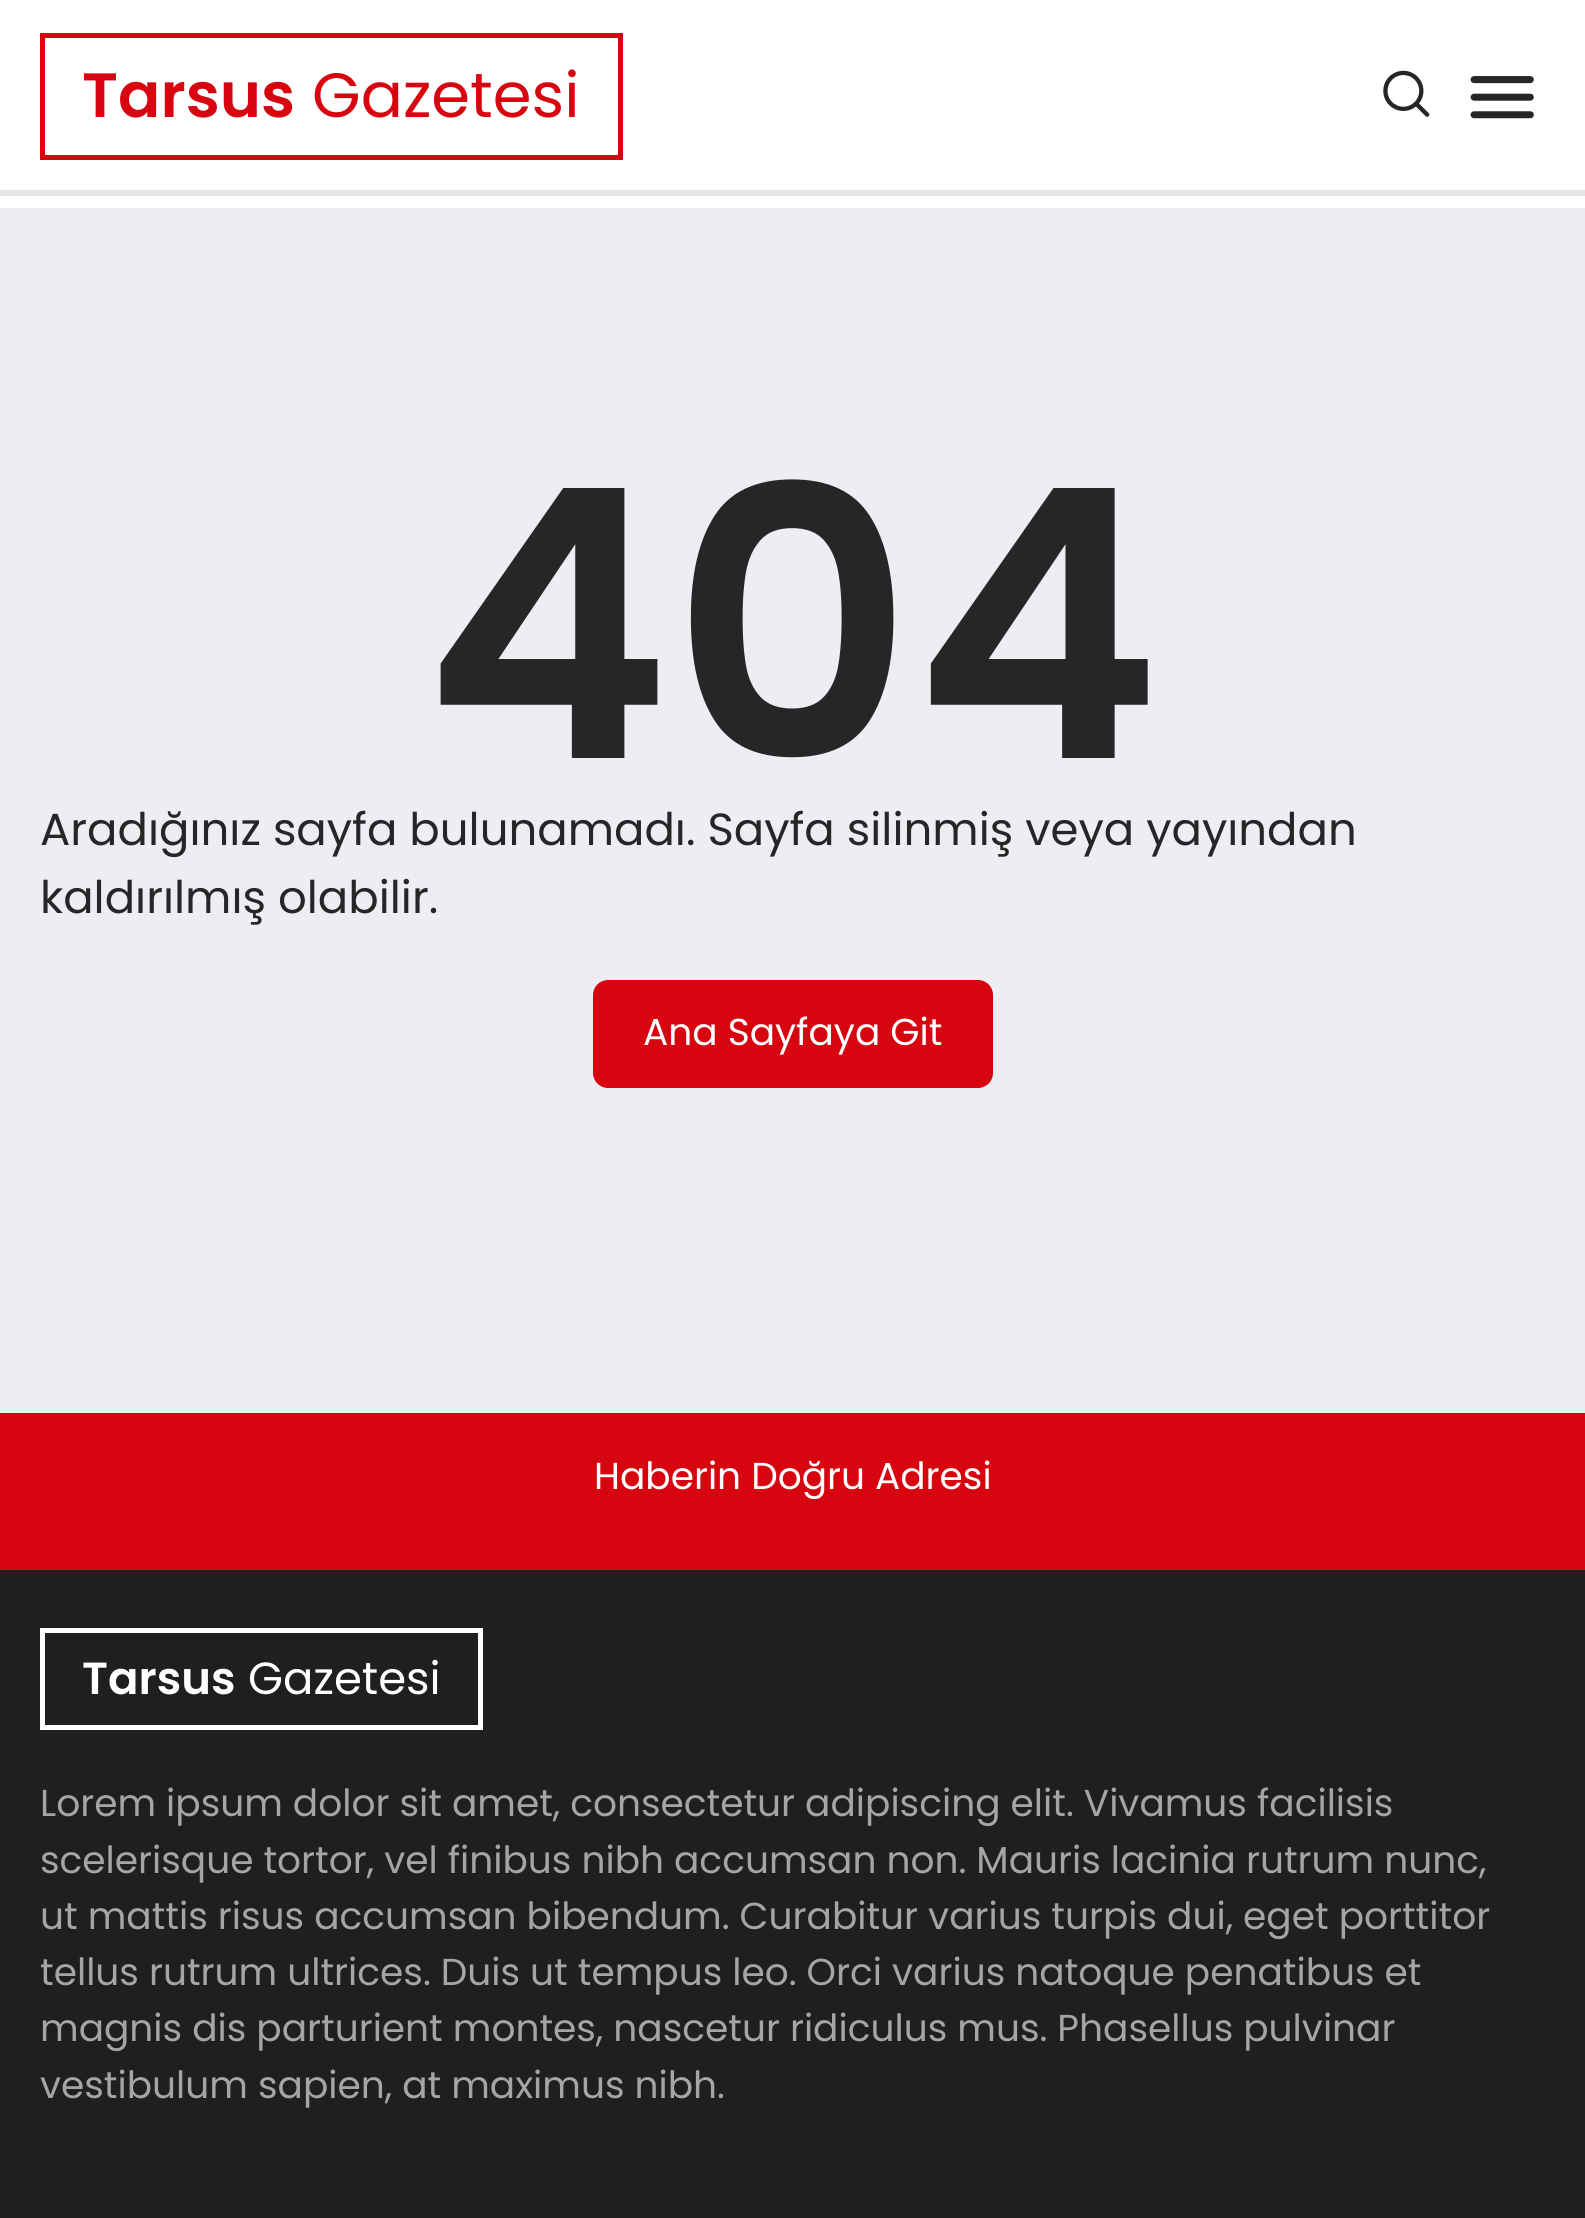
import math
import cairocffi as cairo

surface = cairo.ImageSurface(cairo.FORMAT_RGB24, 1585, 2218)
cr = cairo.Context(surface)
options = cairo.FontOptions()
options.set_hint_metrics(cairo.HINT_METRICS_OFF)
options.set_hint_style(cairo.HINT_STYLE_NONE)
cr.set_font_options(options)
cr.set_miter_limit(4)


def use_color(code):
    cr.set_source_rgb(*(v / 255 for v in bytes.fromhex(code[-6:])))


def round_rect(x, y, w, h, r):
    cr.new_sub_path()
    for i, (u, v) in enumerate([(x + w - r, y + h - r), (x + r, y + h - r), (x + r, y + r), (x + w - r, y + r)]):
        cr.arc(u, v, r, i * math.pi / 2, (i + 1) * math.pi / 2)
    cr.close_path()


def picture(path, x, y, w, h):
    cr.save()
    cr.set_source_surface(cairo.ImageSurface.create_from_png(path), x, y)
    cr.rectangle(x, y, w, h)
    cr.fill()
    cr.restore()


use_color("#ededf4")
cr.paint()
use_color("#ffffff")
cr.rectangle(0, 0, 1585, 208)
cr.fill()
cr.rectangle(42.5, 35.5, 578, 122)
use_color("#d7050f")
cr.set_line_width(5)
cr.stroke()
cr.select_font_face("Poppins SemiBold")
cr.set_font_size(62.5)
cr.move_to(82, 117)
cr.show_text("Tarsus")
cr.select_font_face("Poppins")
cr.move_to(312, 117)
cr.show_text("Gazetesi")
picture("img1.png", 1383, 70, 47, 47)
picture("img2.png", 1470, 76, 64, 43)
use_color("#e6e6e6")
cr.rectangle(0, 190, 1585, 6)
cr.fill()
cr.select_font_face("Poppins SemiBold")
cr.set_font_size(375)
use_color("#262626")
cr.move_to(423, 758)
cr.show_text("404")
cr.select_font_face("Poppins")
cr.set_font_size(45)
cr.move_to(40, 845)
cr.show_text("Aradığınız sayfa bulunamadı. Sayfa silinmiş veya yayından")
cr.move_to(40, 913)
cr.show_text("kaldırılmış olabilir.")
use_color("#d7050f")
round_rect(593, 980, 400, 108, 15)
cr.fill()
cr.set_font_size(37.5)
use_color("#ffffff")
cr.move_to(643, 1045)
cr.show_text("Ana Sayfaya Git")
use_color("#d7050f")
cr.rectangle(0, 1413, 1585, 157)
cr.fill()
use_color("#ffffff")
cr.move_to(594, 1489)
cr.show_text("Haberin Doğru Adresi")
use_color("#1f1f1f")
cr.rectangle(0, 1570, 1585, 648)
cr.fill()
cr.rectangle(42.5, 1630.5, 438, 97)
use_color("#ffffff")
cr.stroke()
cr.select_font_face("Poppins SemiBold")
cr.set_font_size(45)
cr.move_to(82, 1694)
cr.show_text("Tarsus")
cr.select_font_face("Poppins")
cr.move_to(248, 1694)
cr.show_text("Gazetesi")
cr.set_font_size(37.5)
use_color("#a5a5a5")
cr.move_to(40, 1816)
cr.show_text("Lorem ipsum dolor sit amet, consectetur adipiscing elit. Vivamus facilisis")
cr.move_to(40, 1873)
cr.show_text("scelerisque tortor, vel finibus nibh accumsan non. Mauris lacinia rutrum nunc,")
cr.move_to(40, 1929)
cr.show_text("ut mattis risus accumsan bibendum. Curabitur varius turpis dui, eget porttitor")
cr.move_to(40, 1985)
cr.show_text("tellus rutrum ultrices. Duis ut tempus leo. Orci varius natoque penatibus et")
cr.move_to(40, 2041)
cr.show_text("magnis dis parturient montes, nascetur ridiculus mus. Phasellus pulvinar")
cr.move_to(40, 2098)
cr.show_text("vestibulum sapien, at maximus nibh.")
surface.write_to_png("result.png")
